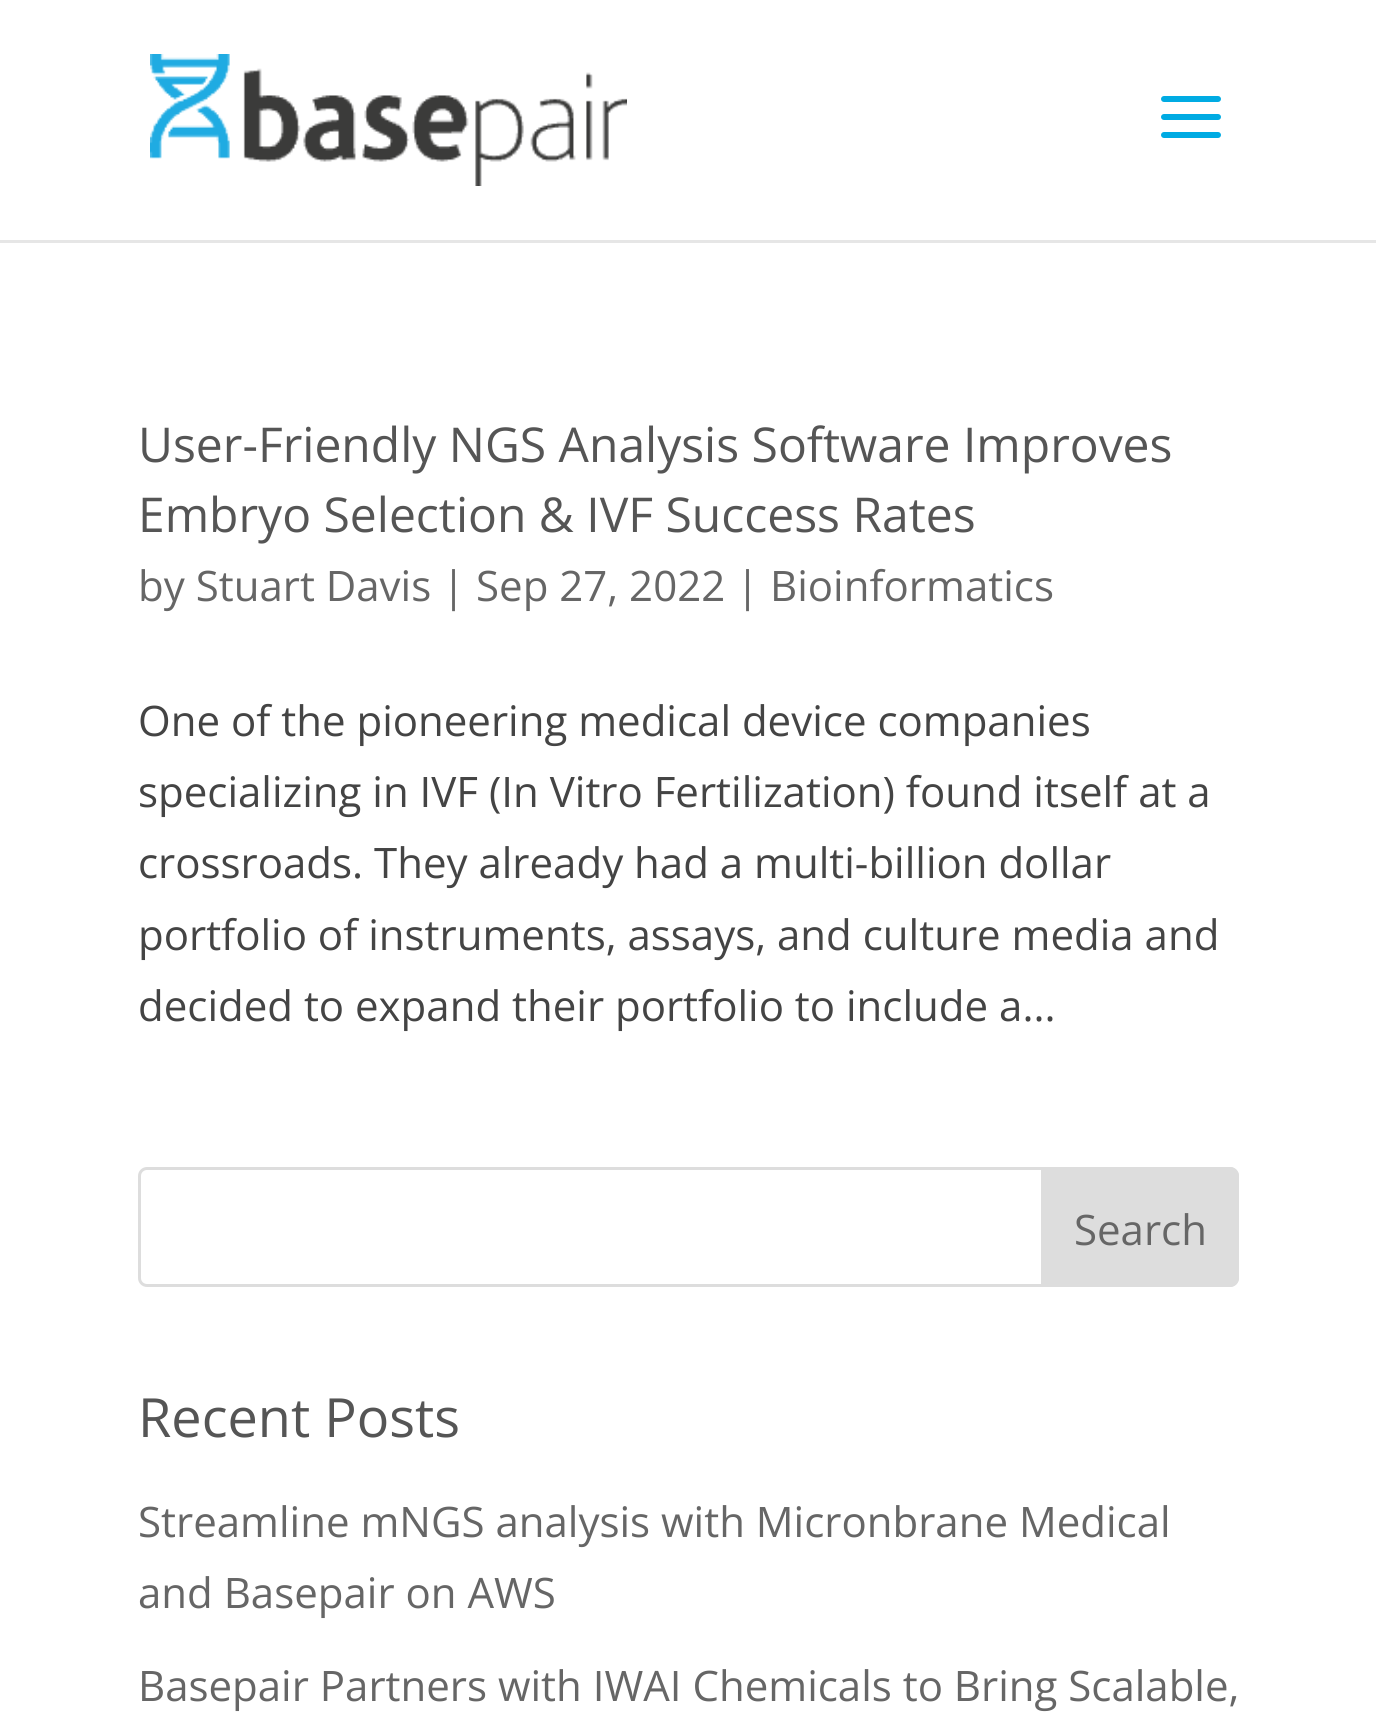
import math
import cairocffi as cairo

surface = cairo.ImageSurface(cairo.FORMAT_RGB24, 1376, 1718)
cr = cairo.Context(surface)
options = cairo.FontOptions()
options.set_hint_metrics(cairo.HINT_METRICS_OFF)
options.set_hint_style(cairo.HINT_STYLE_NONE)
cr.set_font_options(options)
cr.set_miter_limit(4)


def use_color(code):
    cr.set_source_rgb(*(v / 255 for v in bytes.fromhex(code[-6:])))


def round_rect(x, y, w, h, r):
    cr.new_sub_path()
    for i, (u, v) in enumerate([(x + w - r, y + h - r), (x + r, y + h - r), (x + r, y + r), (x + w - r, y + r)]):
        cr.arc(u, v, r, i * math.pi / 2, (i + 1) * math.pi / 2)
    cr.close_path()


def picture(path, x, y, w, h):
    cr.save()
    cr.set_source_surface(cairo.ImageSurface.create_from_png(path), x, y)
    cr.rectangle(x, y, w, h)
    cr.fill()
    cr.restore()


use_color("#ffffff")
cr.paint()
use_color("#e6e6e6")
cr.rectangle(0, 240, 1376, 3)
cr.fill()
picture("img1.png", 150, 54, 477, 132)
picture("img2.png", 1161, 96, 60, 42)
cr.select_font_face("Open Sans")
cr.set_font_size(48)
use_color("#555555")
cr.move_to(138, 462)
cr.show_text("User-Friendly NGS Analysis Software Improves")
cr.move_to(138, 532)
cr.show_text("Embryo Selection & IVF Success Rates")
cr.set_font_size(42)
use_color("#666666")
cr.move_to(138, 601)
cr.show_text("by Stuart Davis | Sep 27, 2022 | Bioinformatics")
use_color("#444444")
cr.move_to(138, 736)
cr.show_text("One of the pioneering medical device companies")
cr.move_to(138, 807)
cr.show_text("specializing in IVF (In Vitro Fertilization) found itself at a")
cr.move_to(138, 878)
cr.show_text("crossroads. They already had a multi-billion dollar")
cr.move_to(138, 950)
cr.show_text("portfolio of instruments, assays, and culture media and")
cr.move_to(138, 1021)
cr.show_text("decided to expand their portfolio to include a...")
round_rect(139.5, 1168.5, 1098, 117, 7.5)
use_color("#dddddd")
cr.set_line_width(3)
cr.stroke()
cr.new_path()
cr.move_to(1042.5, 1168.5)
cr.line_to(1230, 1168.5)
cr.curve_to(1234, 1168.5, 1237.5, 1172, 1237.5, 1176)
cr.line_to(1237.5, 1278)
cr.curve_to(1237.5, 1282, 1234, 1285.5, 1230, 1285.5)
cr.line_to(1042.5, 1285.5)
cr.close_path()
cr.fill_preserve()
cr.stroke()
use_color("#666666")
cr.move_to(1074, 1245)
cr.show_text("Search")
cr.set_font_size(54)
use_color("#555555")
cr.move_to(138, 1437)
cr.show_text("Recent Posts")
cr.set_font_size(42)
use_color("#666666")
cr.move_to(138, 1537)
cr.show_text("Streamline mNGS analysis with Micronbrane Medical")
cr.move_to(138, 1608)
cr.show_text("and Basepair on AWS")
cr.move_to(138, 1701)
cr.show_text("Basepair Partners with IWAI Chemicals to Bring Scalable,")
surface.write_to_png("result.png")
